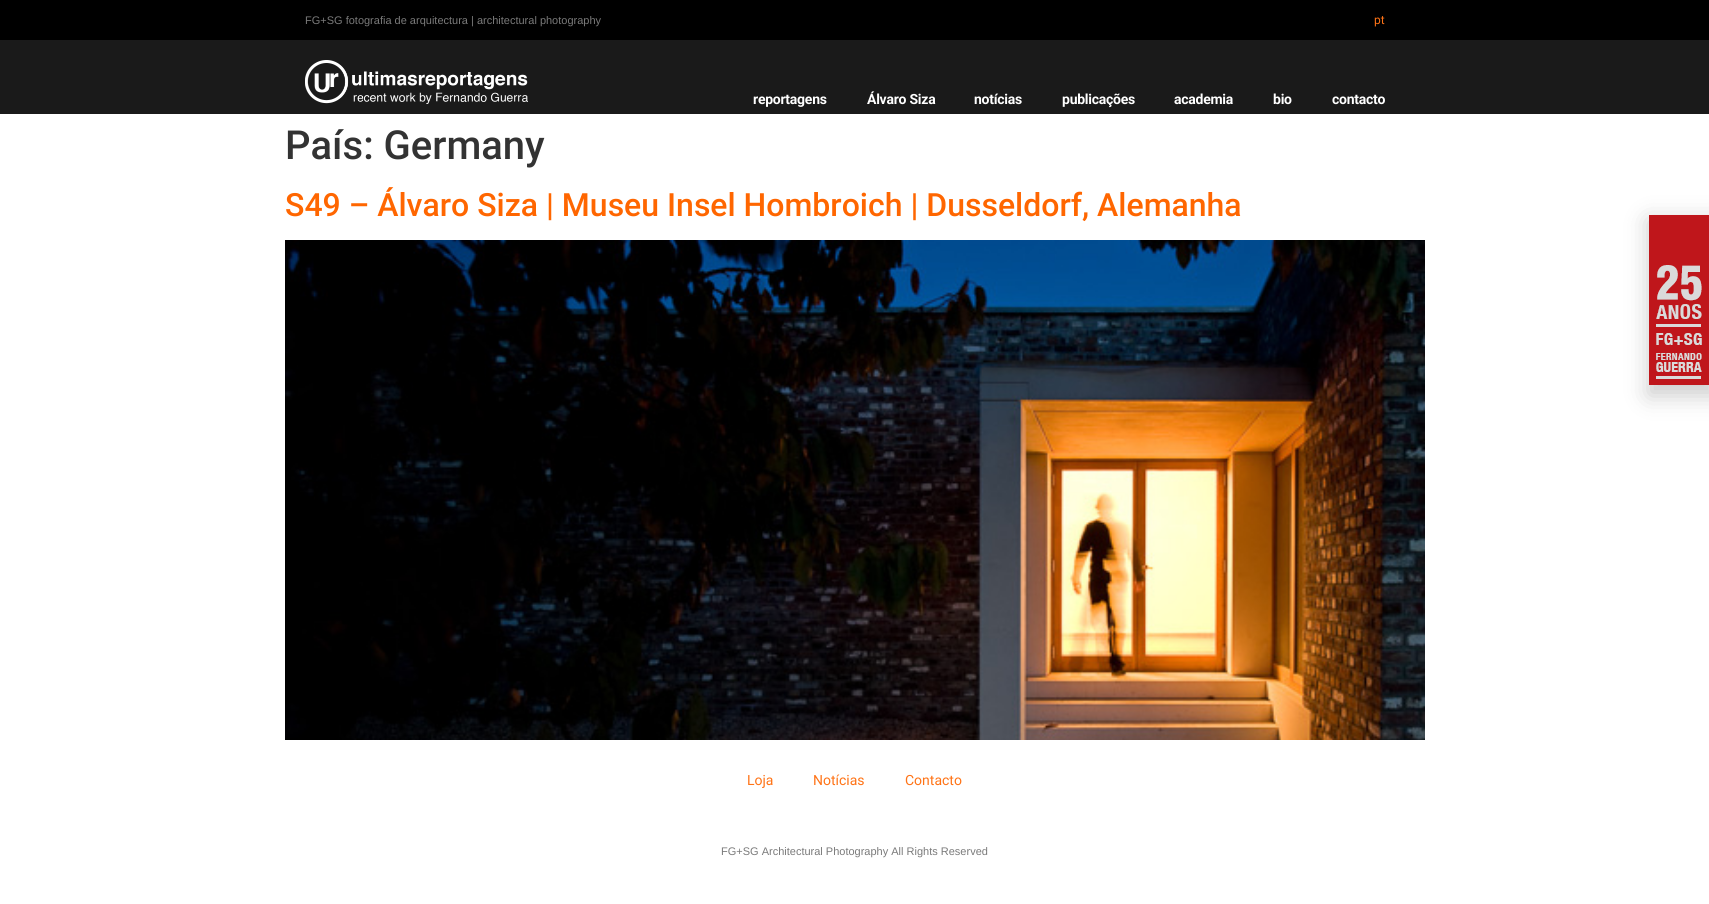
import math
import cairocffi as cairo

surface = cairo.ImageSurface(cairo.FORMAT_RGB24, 1709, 904)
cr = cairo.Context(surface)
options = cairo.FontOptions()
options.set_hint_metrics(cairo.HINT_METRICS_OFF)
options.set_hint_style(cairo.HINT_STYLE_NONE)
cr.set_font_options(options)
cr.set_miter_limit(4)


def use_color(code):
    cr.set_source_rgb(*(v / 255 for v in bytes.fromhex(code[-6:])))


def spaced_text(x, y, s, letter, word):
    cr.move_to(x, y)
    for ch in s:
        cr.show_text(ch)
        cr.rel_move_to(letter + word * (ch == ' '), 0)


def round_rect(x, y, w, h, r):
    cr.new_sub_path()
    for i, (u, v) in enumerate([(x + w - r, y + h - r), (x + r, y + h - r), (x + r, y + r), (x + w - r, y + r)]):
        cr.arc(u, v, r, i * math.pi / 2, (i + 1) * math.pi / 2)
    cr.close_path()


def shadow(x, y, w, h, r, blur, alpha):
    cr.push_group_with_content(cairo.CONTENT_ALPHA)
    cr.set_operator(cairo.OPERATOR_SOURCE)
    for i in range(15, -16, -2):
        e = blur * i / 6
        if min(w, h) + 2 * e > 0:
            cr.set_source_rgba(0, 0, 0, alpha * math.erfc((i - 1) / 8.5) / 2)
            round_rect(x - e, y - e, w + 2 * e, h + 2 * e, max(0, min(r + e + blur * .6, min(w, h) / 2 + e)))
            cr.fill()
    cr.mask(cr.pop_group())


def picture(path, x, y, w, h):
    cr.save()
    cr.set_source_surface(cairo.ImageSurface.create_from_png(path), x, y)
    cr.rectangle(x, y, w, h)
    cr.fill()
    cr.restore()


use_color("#ffffff")
cr.paint()
use_color("#000000")
cr.rectangle(0, 0, 1709, 40)
cr.fill()
cr.select_font_face("Liberation Sans")
cr.set_font_size(11)
use_color("#7a7a7a")
cr.move_to(305, 24)
cr.show_text("FG+SG fotografia de arquitectura | architectural photography")
cr.select_font_face("Roboto")
cr.set_font_size(12)
use_color("#ff7316")
cr.move_to(1374, 24)
cr.show_text("pt")
use_color("#1a1a1a")
cr.rectangle(0, 40, 1709, 74)
cr.fill()
picture("img1.png", 305, 60, 223, 44)
cr.select_font_face("Roboto", cairo.FONT_SLANT_NORMAL, cairo.FONT_WEIGHT_BOLD)
cr.set_font_size(14)
use_color("#ffffff")
spaced_text(753, 104, "reportagens", -0.25, 0)
spaced_text(867, 104, "Álvaro Siza", -0.25, 0)
spaced_text(974, 104, "notícias", -0.25, 0)
spaced_text(1062, 104, "publicações", -0.25, 0)
spaced_text(1174, 104, "academia", -0.25, 0)
spaced_text(1273, 104, "bio", -0.25, 0)
spaced_text(1332, 104, "contacto", -0.25, 0)
cr.select_font_face("Roboto Medium")
cr.set_font_size(40)
use_color("#333333")
cr.move_to(285, 159)
cr.show_text("País: Germany")
cr.set_font_size(32)
use_color("#ff6600")
cr.move_to(285, 216)
cr.show_text("S49 – Álvaro Siza | Museu Insel Hombroich | Dusseldorf, Alemanha")
picture("img2.png", 285, 240, 1140, 500)
use_color("#000000")
shadow(1648, 220, 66, 176, 0, 11.5, 0.2)
picture("img3.png", 1649, 215, 60, 170)
cr.select_font_face("Roboto")
cr.set_font_size(14)
use_color("#ff7316")
cr.move_to(747, 785)
cr.show_text("Loja")
cr.move_to(813, 785)
cr.show_text("Notícias")
cr.move_to(905, 785)
cr.show_text("Contacto")
cr.select_font_face("Liberation Sans")
cr.set_font_size(11)
use_color("#7a7a7a")
cr.move_to(721, 855)
cr.show_text("FG+SG Architectural Photography All Rights Reserved")
surface.write_to_png("result.png")
